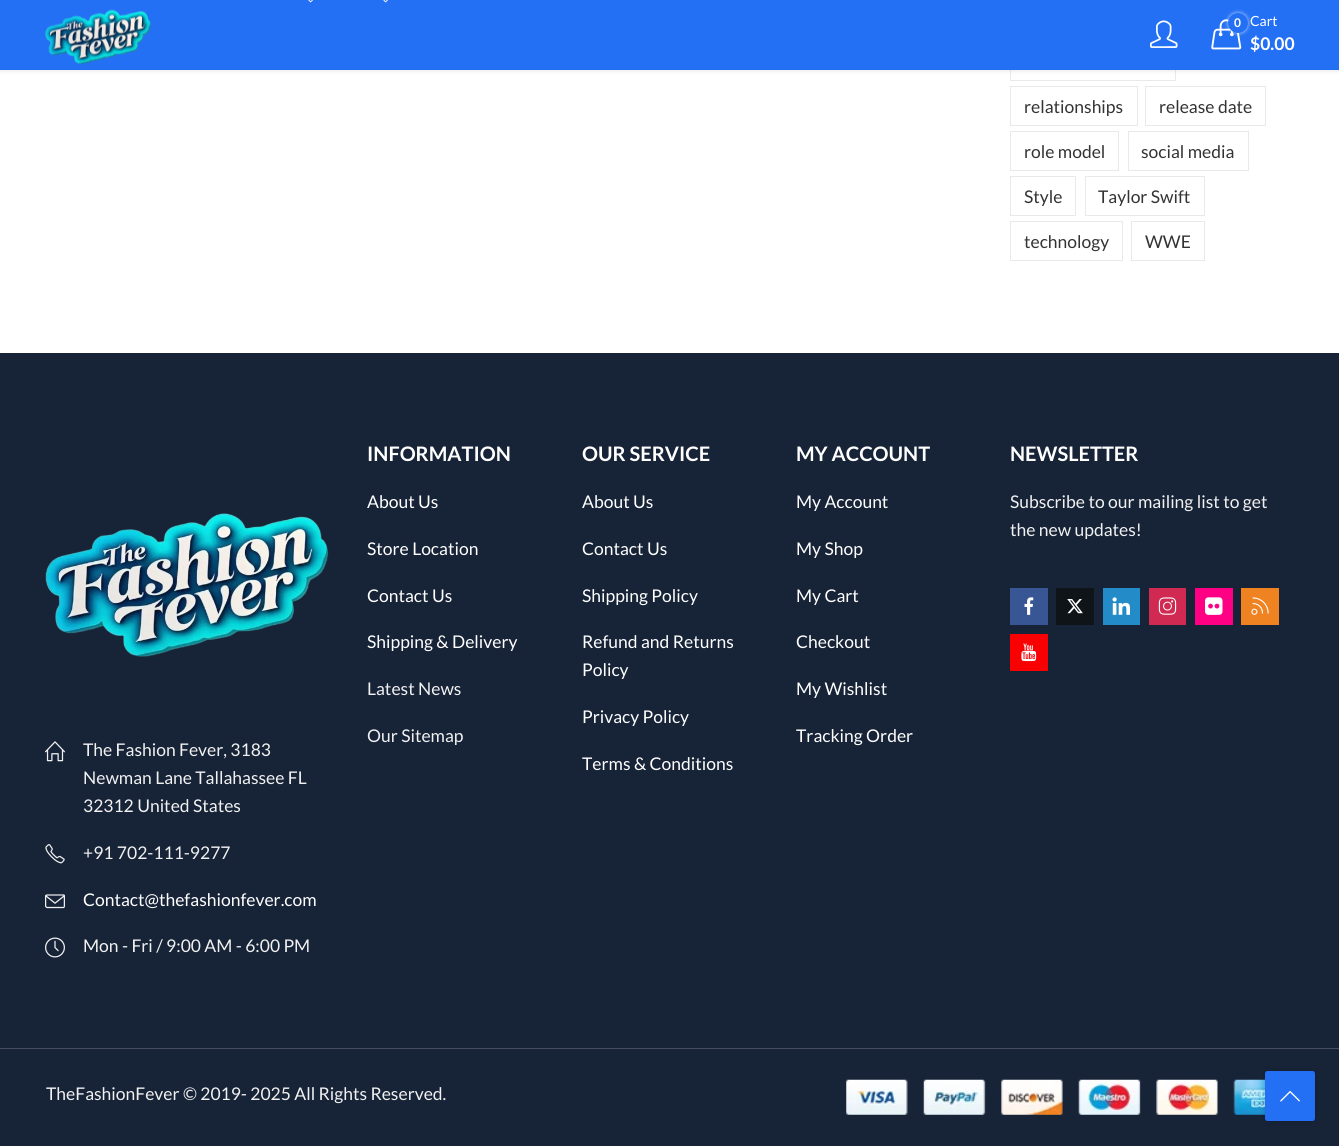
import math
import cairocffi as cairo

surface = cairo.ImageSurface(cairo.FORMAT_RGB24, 1339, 1146)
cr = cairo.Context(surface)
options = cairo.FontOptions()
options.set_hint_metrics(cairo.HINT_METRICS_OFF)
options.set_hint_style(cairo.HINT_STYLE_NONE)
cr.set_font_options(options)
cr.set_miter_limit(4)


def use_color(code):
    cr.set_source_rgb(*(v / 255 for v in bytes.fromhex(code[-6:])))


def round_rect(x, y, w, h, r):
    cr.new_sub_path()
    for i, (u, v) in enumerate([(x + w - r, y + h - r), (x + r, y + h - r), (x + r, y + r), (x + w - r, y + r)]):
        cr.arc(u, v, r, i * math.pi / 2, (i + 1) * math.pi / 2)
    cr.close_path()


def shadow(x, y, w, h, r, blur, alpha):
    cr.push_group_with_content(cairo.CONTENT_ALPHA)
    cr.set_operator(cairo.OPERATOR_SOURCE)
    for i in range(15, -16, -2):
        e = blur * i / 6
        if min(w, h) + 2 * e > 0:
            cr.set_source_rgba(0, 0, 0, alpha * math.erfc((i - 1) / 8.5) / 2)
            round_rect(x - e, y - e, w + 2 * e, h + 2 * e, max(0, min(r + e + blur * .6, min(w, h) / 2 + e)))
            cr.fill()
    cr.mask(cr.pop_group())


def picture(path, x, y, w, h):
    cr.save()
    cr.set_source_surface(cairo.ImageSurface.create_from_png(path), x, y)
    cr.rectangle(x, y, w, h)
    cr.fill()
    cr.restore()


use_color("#ffffff")
cr.paint()
cr.rectangle(1010.5, 41.5, 165, 39)
use_color("#e9e9e9")
cr.set_line_width(1)
cr.stroke()
use_color("#000000")
shadow(0, 1, 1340, 70, 0, 2, 0.1)
use_color("#2370f4")
cr.rectangle(0, 0, 1339, 70)
cr.fill()
picture("img1.png", 308, 0, 5, 3)
picture("img1.png", 383, 0, 5, 3)
picture("img2.png", 45, 9, 106, 56)
picture("img3.png", 1150, 20, 28, 28)
picture("img4.png", 1211, 19, 31, 31)
use_color("#ffffff")
shadow(1228, 13, 20, 20, 10, 2, 0.7)
use_color("#2370f4")
cr.arc(1238, 23, 10, 0, 2 * math.pi)
cr.fill()
cr.select_font_face("Lato", cairo.FONT_SLANT_NORMAL, cairo.FONT_WEIGHT_BOLD)
cr.set_font_size(12)
use_color("#ffffff")
cr.move_to(1234, 27)
cr.show_text("0")
cr.select_font_face("Lato")
cr.set_font_size(14)
cr.move_to(1250, 26)
cr.show_text("Cart")
cr.select_font_face("Lato", cairo.FONT_SLANT_NORMAL, cairo.FONT_WEIGHT_BOLD)
cr.set_font_size(17.5)
cr.move_to(1250, 50)
cr.show_text("$0.00")
cr.rectangle(1010.5, 86.5, 127, 39)
use_color("#e9e9e9")
cr.stroke()
cr.select_font_face("Lato")
use_color("#333333")
cr.move_to(1024, 113)
cr.show_text("relationships")
cr.rectangle(1145.5, 86.5, 120, 39)
use_color("#e9e9e9")
cr.stroke()
use_color("#333333")
cr.move_to(1159, 113)
cr.show_text("release date")
cr.rectangle(1010.5, 131.5, 108, 39)
use_color("#e9e9e9")
cr.stroke()
use_color("#333333")
cr.move_to(1024, 158)
cr.show_text("role model")
cr.rectangle(1128.5, 131.5, 120, 39)
use_color("#e9e9e9")
cr.stroke()
use_color("#333333")
cr.move_to(1141, 158)
cr.show_text("social media")
cr.rectangle(1010.5, 176.5, 65, 39)
use_color("#e9e9e9")
cr.stroke()
use_color("#333333")
cr.move_to(1024, 203)
cr.show_text("Style")
cr.rectangle(1085.5, 176.5, 119, 39)
use_color("#e9e9e9")
cr.stroke()
use_color("#333333")
cr.move_to(1098, 203)
cr.show_text("Taylor Swift")
cr.rectangle(1010.5, 221.5, 112, 39)
use_color("#e9e9e9")
cr.stroke()
use_color("#333333")
cr.move_to(1024, 248)
cr.show_text("technology")
cr.rectangle(1131.5, 221.5, 73, 39)
use_color("#e9e9e9")
cr.stroke()
use_color("#333333")
cr.move_to(1145, 248)
cr.show_text("WWE")
use_color("#172337")
cr.rectangle(0, 353, 1339, 695)
cr.fill()
cr.select_font_face("Lato", cairo.FONT_SLANT_NORMAL, cairo.FONT_WEIGHT_BOLD)
cr.set_font_size(20)
use_color("#ffffff")
cr.move_to(367, 461)
cr.show_text("INFORMATION")
cr.select_font_face("Lato")
cr.set_font_size(17.5)
cr.move_to(367, 508)
cr.show_text("About Us")
cr.move_to(367, 555)
cr.show_text("Store Location")
cr.move_to(367, 602)
cr.show_text("Contact Us")
cr.move_to(367, 648)
cr.show_text("Shipping & Delivery")
use_color("#f1f1f1")
cr.move_to(367, 695)
cr.show_text("Latest News")
cr.move_to(367, 742)
cr.show_text("Our Sitemap")
cr.select_font_face("Lato", cairo.FONT_SLANT_NORMAL, cairo.FONT_WEIGHT_BOLD)
cr.set_font_size(20)
use_color("#ffffff")
cr.move_to(582, 461)
cr.show_text("OUR SERVICE")
cr.select_font_face("Lato")
cr.set_font_size(17.5)
cr.move_to(582, 508)
cr.show_text("About Us")
cr.move_to(582, 555)
cr.show_text("Contact Us")
cr.move_to(582, 602)
cr.show_text("Shipping Policy")
cr.move_to(582, 648)
cr.show_text("Refund and Returns")
cr.move_to(582, 676)
cr.show_text("Policy")
cr.move_to(582, 723)
cr.show_text("Privacy Policy")
cr.move_to(582, 770)
cr.show_text("Terms & Conditions")
cr.select_font_face("Lato", cairo.FONT_SLANT_NORMAL, cairo.FONT_WEIGHT_BOLD)
cr.set_font_size(20)
cr.move_to(796, 461)
cr.show_text("MY ACCOUNT")
cr.select_font_face("Lato")
cr.set_font_size(17.5)
cr.move_to(796, 508)
cr.show_text("My Account")
cr.move_to(796, 555)
cr.show_text("My Shop")
cr.move_to(796, 602)
cr.show_text("My Cart")
cr.move_to(796, 648)
cr.show_text("Checkout")
cr.move_to(796, 695)
cr.show_text("My Wishlist")
cr.move_to(796, 742)
cr.show_text("Tracking Order")
cr.select_font_face("Lato", cairo.FONT_SLANT_NORMAL, cairo.FONT_WEIGHT_BOLD)
cr.set_font_size(20)
cr.move_to(1010, 461)
cr.show_text("NEWSLETTER")
cr.select_font_face("Lato")
cr.set_font_size(17.5)
use_color("#f1f1f1")
cr.move_to(1010, 508)
cr.show_text("Subscribe to our mailing list to get")
cr.move_to(1010, 536)
cr.show_text("the new updates!")
use_color("#385693")
cr.rectangle(1010, 588, 38, 37)
cr.fill()
picture("img5.png", 1024, 597, 10, 18)
use_color("#0f1419")
cr.rectangle(1056, 588, 38, 37)
cr.fill()
picture("img6.png", 1067, 599, 16, 15)
use_color("#238cc8")
cr.rectangle(1103, 588, 37, 37)
cr.fill()
picture("img7.png", 1112, 597, 18, 18)
use_color("#d02a52")
cr.rectangle(1149, 588, 37, 37)
cr.fill()
picture("img8.png", 1158, 597, 19, 18)
use_color("#ff0084")
cr.rectangle(1195, 588, 38, 37)
cr.fill()
picture("img9.png", 1205, 597, 18, 18)
use_color("#ef8321")
cr.rectangle(1241, 588, 38, 37)
cr.fill()
picture("img10.png", 1251, 597, 18, 18)
use_color("#f90002")
cr.rectangle(1010, 634, 38, 37)
cr.fill()
picture("img11.png", 1021, 643, 16, 19)
picture("img12.png", 45, 513, 284, 144)
picture("img13.png", 45, 741, 20, 21)
use_color("#f1f1f1")
cr.move_to(83, 756)
cr.show_text("The Fashion Fever, 3183")
cr.move_to(83, 784)
cr.show_text("Newman Lane Tallahassee FL")
cr.move_to(83, 812)
cr.show_text("32312 United States")
picture("img14.png", 45, 844, 20, 20)
cr.move_to(83, 859)
cr.show_text("+91 702-111-9277")
picture("img15.png", 45, 894, 20, 15)
use_color("#ffffff")
cr.move_to(83, 906)
cr.show_text("Contact@thefashionfever.com")
picture("img16.png", 45, 937, 20, 21)
use_color("#f1f1f1")
cr.move_to(83, 952)
cr.show_text("Mon - Fri / 9:00 AM - 6:00 PM")
use_color("#172337")
cr.rectangle(0, 1049, 1339, 97)
cr.fill()
use_color("#454d5e")
cr.rectangle(0, 1048, 1339, 1)
cr.fill()
use_color("#f1f1f1")
cr.move_to(46, 1100)
cr.show_text("TheFashionFever © 2019- 2025 All Rights Reserved.")
picture("img17.png", 846, 1079, 419, 36)
use_color("#000000")
shadow(1265, 1071, 50, 50, 2.5, 3, 0.15)
use_color("#2370f4")
round_rect(1265, 1071, 50, 50, 2.5)
cr.fill()
picture("img18.png", 1280, 1091, 20, 11)
surface.write_to_png("result.png")
